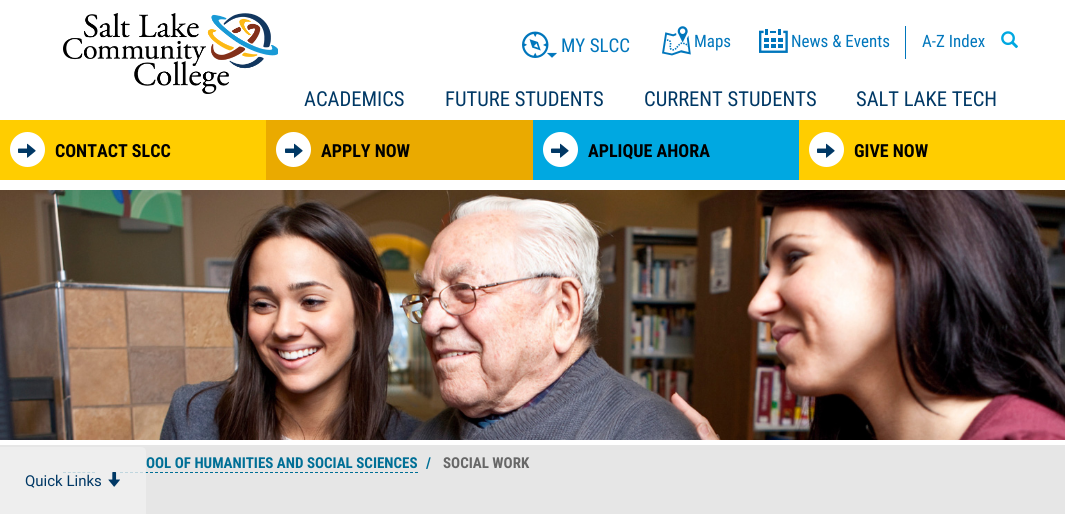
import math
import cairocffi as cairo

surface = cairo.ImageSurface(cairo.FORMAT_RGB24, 1065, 514)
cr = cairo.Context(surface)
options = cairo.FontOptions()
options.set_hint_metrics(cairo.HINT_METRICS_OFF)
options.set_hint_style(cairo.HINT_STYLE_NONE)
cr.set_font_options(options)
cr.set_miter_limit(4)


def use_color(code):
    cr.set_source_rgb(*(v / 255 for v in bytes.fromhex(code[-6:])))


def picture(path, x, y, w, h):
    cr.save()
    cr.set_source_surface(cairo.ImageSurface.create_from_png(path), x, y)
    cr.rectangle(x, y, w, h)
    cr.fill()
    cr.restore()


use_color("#ffffff")
cr.paint()
picture("img1.png", 63, 13, 215, 81)
picture("img2.png", 522, 31, 35, 27)
cr.select_font_face("Roboto Condensed")
cr.set_font_size(19)
use_color("#0076bc")
cr.move_to(561, 52)
cr.show_text("MY SLCC")
picture("img3.png", 662, 26, 29, 30)
cr.set_font_size(17)
cr.move_to(694, 47)
cr.show_text("Maps")
picture("img4.png", 759, 29, 29, 24)
cr.move_to(791, 47)
cr.show_text("News & Events")
cr.rectangle(905, 26, 1, 33)
cr.fill()
cr.move_to(922, 47)
cr.show_text("A-Z Index")
picture("img5.png", 1001, 31, 17, 18)
cr.set_font_size(20.6)
use_color("#003865")
cr.move_to(304, 106)
cr.show_text("ACADEMICS")
cr.move_to(445, 106)
cr.show_text("FUTURE STUDENTS")
cr.move_to(644, 106)
cr.show_text("CURRENT STUDENTS")
cr.move_to(856, 106)
cr.show_text("SALT LAKE TECH")
use_color("#ffcd00")
cr.rectangle(0, 120, 266, 60)
cr.fill()
use_color("#ffffff")
cr.arc(27.5, 149.5, 17.5, 0, 2 * math.pi)
cr.fill()
picture("img6.png", 18, 143, 18, 15)
cr.select_font_face("Roboto Condensed", cairo.FONT_SLANT_NORMAL, cairo.FONT_WEIGHT_BOLD)
cr.set_font_size(18)
use_color("#000000")
cr.move_to(55, 157)
cr.show_text("CONTACT SLCC")
use_color("#eaaa00")
cr.rectangle(266, 120, 267, 60)
cr.fill()
use_color("#ffffff")
cr.arc(293.5, 149.5, 17.5, 0, 2 * math.pi)
cr.fill()
picture("img6.png", 285, 143, 18, 15)
use_color("#000000")
cr.move_to(321, 157)
cr.show_text("APPLY NOW")
use_color("#00a8e1")
cr.rectangle(533, 120, 266, 60)
cr.fill()
use_color("#ffffff")
cr.arc(560.5, 149.5, 17.5, 0, 2 * math.pi)
cr.fill()
picture("img6.png", 551, 143, 18, 15)
use_color("#000000")
cr.move_to(588, 157)
cr.show_text("APLIQUE AHORA")
use_color("#ffcd00")
cr.rectangle(799, 120, 266, 60)
cr.fill()
use_color("#ffffff")
cr.arc(826.5, 149.5, 17.5, 0, 2 * math.pi)
cr.fill()
picture("img6.png", 817, 143, 18, 15)
use_color("#000000")
cr.move_to(854, 157)
cr.show_text("GIVE NOW")
picture("img7.png", 0, 190, 1065, 250)
use_color("#e6e6e6")
cr.rectangle(0, 445, 1065, 69)
cr.fill()
cr.set_font_size(15)
use_color("#006f96")
cr.move_to(146, 468)
cr.show_text("OOL OF HUMANITIES AND SOCIAL SCIENCES")
cr.new_path()
cr.move_to(120, 472.5)
cr.line_to(418, 472.5)
cr.set_line_width(1)
cr.set_dash([3, 2])
cr.stroke()
cr.move_to(426, 468)
cr.show_text("/")
use_color("#676767")
cr.move_to(443, 468)
cr.show_text("SOCIAL WORK")
cr.new_path()
cr.move_to(63, 472.5)
cr.line_to(95, 472.5)
use_color("#006f96")
cr.set_dash([3, 1.83])
cr.stroke()
cr.set_source_rgba(0.941, 0.941, 0.941, 0.8)
cr.new_path()
cr.move_to(0, 447)
cr.line_to(141, 447)
cr.curve_to(144, 447, 146, 449, 146, 452)
cr.line_to(146, 514)
cr.line_to(0, 514)
cr.close_path()
cr.fill()
cr.select_font_face("Roboto")
use_color("#003865")
cr.move_to(25, 486)
cr.show_text("Quick Links")
picture("img8.png", 108, 472, 12, 15)
surface.write_to_png("result.png")
